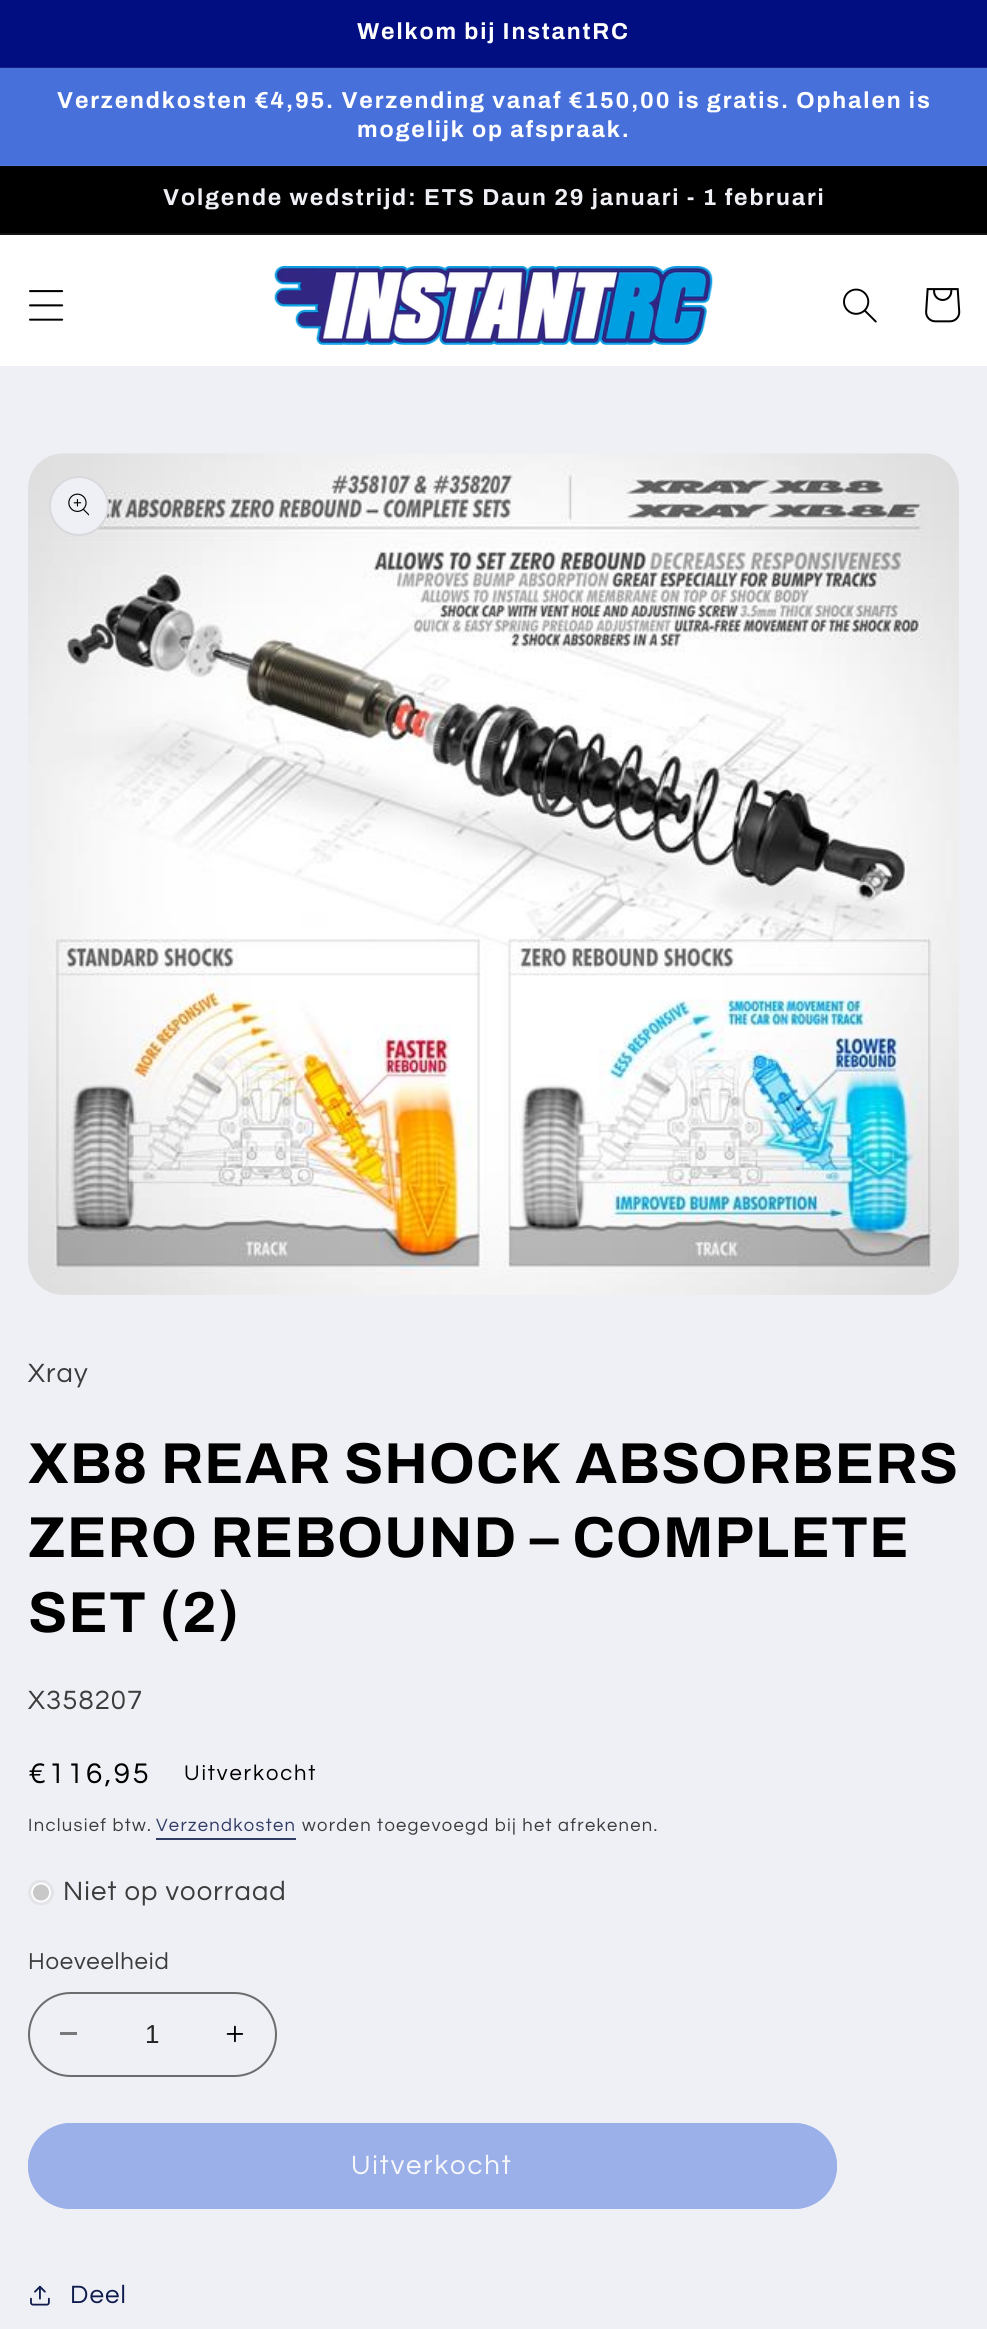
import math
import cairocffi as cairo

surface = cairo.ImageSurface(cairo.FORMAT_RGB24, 987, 2329)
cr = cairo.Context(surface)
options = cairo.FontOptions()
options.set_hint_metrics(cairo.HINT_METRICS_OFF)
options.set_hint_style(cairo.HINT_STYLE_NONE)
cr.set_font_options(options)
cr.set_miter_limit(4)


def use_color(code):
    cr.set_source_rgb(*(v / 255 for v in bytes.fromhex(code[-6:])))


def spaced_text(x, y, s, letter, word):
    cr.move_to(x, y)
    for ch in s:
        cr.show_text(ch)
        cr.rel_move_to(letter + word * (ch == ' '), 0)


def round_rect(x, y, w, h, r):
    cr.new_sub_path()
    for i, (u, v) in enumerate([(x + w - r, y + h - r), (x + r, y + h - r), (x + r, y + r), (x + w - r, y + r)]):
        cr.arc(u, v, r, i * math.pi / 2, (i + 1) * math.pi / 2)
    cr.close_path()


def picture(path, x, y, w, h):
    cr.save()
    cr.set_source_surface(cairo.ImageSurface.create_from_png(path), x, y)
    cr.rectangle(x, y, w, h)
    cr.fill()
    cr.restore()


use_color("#eff0f5")
cr.paint()
use_color("#000e81")
cr.rectangle(0, 0, 987, 67)
cr.fill()
use_color("#14218b")
cr.rectangle(0, 67, 987, 1)
cr.fill()
cr.select_font_face("Archivo", cairo.FONT_SLANT_NORMAL, cairo.FONT_WEIGHT_BOLD)
cr.set_font_size(23.1)
use_color("#ffffff")
spaced_text(357, 39, "Welkom bij InstantRC", 1.85, 0)
use_color("#4770db")
cr.rectangle(0, 68, 987, 97)
cr.fill()
use_color("#567bde")
cr.rectangle(0, 165, 987, 1)
cr.fill()
use_color("#ffffff")
spaced_text(57, 108, "Verzendkosten €4,95. Verzending vanaf €150,00 is gratis. Ophalen is", 1.85, 0)
spaced_text(357, 137, "mogelijk op afspraak.", 1.85, 0)
use_color("#000000")
cr.rectangle(0, 166, 987, 67)
cr.fill()
use_color("#131314")
cr.rectangle(0, 233, 987, 2)
cr.fill()
use_color("#eff0f5")
spaced_text(163, 205, "Volgende wedstrijd: ETS Daun 29 januari - 1 februari", 1.85, 0)
use_color("#ffffff")
cr.rectangle(0, 235, 987, 131)
cr.fill()
picture("img1.png", 29, 290, 35, 31)
picture("img2.png", 274, 266, 439, 79)
picture("img3.png", 843, 288, 34, 35)
picture("img4.png", 925, 288, 36, 35)
picture("img5.png", 28, 453, 931, 842)
use_color("#eff0f5")
cr.arc(79, 506, 30, 0, 2 * math.pi)
cr.fill()
cr.arc(79, 506, 29, 0, 2 * math.pi)
cr.set_source_rgba(0, 0, 0, 0.1)
cr.stroke()
picture("img6.png", 68, 493, 21, 23)
cr.select_font_face("Questrial")
cr.set_font_size(27.5)
use_color("#3c3c3d")
spaced_text(28, 1382, "Xray", 1.1, 0)
cr.select_font_face("Archivo", cairo.FONT_SLANT_NORMAL, cairo.FONT_WEIGHT_BOLD)
cr.set_font_size(57.75)
use_color("#000000")
spaced_text(28, 1483, "XB8 REAR SHOCK ABSORBERS", 1.2, 0)
spaced_text(28, 1557, "ZERO REBOUND – COMPLETE", 1.2, 0)
spaced_text(28, 1632, "SET (2)", 1.2, 0)
cr.select_font_face("Questrial")
cr.set_font_size(27.5)
use_color("#3c3c3d")
spaced_text(28, 1709, "X358207", 1.1, 0)
cr.set_font_size(29.5)
use_color("#000000")
spaced_text(28, 1783, "€116,95", 2.5, 0)
cr.set_font_size(22)
spaced_text(184, 1780, "Uitverkocht", 1.85, 0)
cr.set_font_size(18.4)
use_color("#3c3c3d")
spaced_text(28, 1831, "Inclusief btw.", 1.3, 0)
use_color("#303b66")
spaced_text(156, 1831, "Verzendkosten", 1.3, 0)
cr.rectangle(156, 1838, 140, 2)
cr.fill()
use_color("#3c3c3d")
spaced_text(302, 1831, "worden toegevoegd bij het afrekenen.", 1.3, 0)
cr.save()
cr.rectangle(28, 1880, 26, 26)
cr.clip()
use_color("#e3e4e8")
cr.arc(41, 1892.5, 13, 0, 2 * math.pi)
cr.fill()
cr.restore()
use_color("#c8c8c8")
cr.arc(41, 1892.5, 9, 0, 2 * math.pi)
cr.fill_preserve()
use_color("#ffffff")
cr.set_line_width(1.8)
cr.stroke()
cr.set_font_size(27.5)
use_color("#3c3c3d")
spaced_text(63, 1900, "Niet op voorraad", 1.1, 0)
cr.set_font_size(24)
spaced_text(28, 1969, "Hoeveelheid", 0.75, 0)
use_color("#78787b")
cr.rectangle(60, 2032, 17, 3)
cr.fill()
picture("img7.png", 226, 2025, 18, 18)
round_rect(29, 1993, 247, 83, 41.5)
use_color("#6c6c6e")
cr.set_line_width(2)
cr.stroke()
cr.select_font_face("Liberation Sans")
cr.set_font_size(26)
use_color("#242425")
cr.move_to(145, 2043)
cr.show_text("1")
use_color("#9bb0e8")
round_rect(28, 2123, 809, 86, 43)
cr.fill()
round_rect(29, 2124, 807, 84, 42)
cr.stroke()
cr.select_font_face("Questrial")
cr.set_font_size(27.5)
use_color("#f7f8fa")
spaced_text(351, 2174, "Uitverkocht", 1.85, 0)
picture("img8.png", 30, 2285, 20, 21)
cr.set_font_size(26)
use_color("#0e1b4d")
spaced_text(70, 2303, "Deel", 1.1, 0)
surface.write_to_png("result.png")
